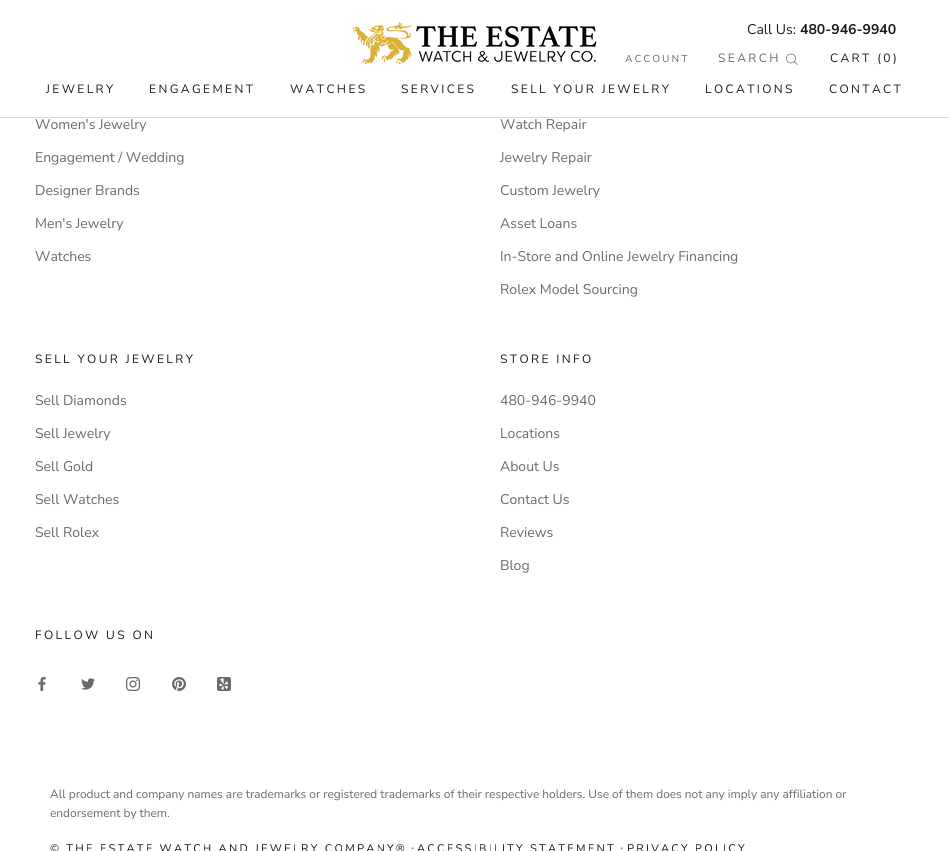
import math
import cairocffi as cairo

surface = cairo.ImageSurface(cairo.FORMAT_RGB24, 949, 851)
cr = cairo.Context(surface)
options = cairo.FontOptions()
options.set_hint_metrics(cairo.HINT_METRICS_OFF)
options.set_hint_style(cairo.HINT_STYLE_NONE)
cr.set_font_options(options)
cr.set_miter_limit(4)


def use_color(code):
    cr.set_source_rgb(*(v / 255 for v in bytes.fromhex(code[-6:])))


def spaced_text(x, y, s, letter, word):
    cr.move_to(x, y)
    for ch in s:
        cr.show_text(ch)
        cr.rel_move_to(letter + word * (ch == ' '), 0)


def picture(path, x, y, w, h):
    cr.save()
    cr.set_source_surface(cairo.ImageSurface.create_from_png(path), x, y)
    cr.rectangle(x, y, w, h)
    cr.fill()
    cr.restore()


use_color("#ffffff")
cr.paint()
use_color("#dddddd")
cr.rectangle(0, 117, 949, 1)
cr.fill()
picture("img1.png", 352, 22, 245, 43)
cr.select_font_face("Nunito Sans")
cr.set_font_size(14)
use_color("#1c1b1b")
cr.move_to(747, 34)
cr.show_text("Call Us:")
cr.select_font_face("Nunito Sans", cairo.FONT_SLANT_NORMAL, cairo.FONT_WEIGHT_BOLD)
cr.move_to(800, 34)
cr.show_text("480-946-9940")
cr.select_font_face("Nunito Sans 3")
cr.set_font_size(10)
use_color("#6a6a6a")
spaced_text(625, 62, "ACCOUNT", 2, 0)
cr.select_font_face("Nunito Sans")
cr.set_font_size(12)
spaced_text(718, 62, "SEARCH", 2.4, 0)
cr.new_path()
cr.move_to(797.5, 64.5)
cr.line_to(794, 61.5)
cr.set_line_width(0.7)
cr.set_line_cap(cairo.LINE_CAP_SQUARE)
cr.stroke()
cr.arc(791, 58.5, 4.5, 0, 2 * math.pi)
cr.set_line_cap(cairo.LINE_CAP_BUTT)
cr.stroke()
use_color("#1c1b1b")
spaced_text(830, 62, "CART (0)", 2.4, 0)
spaced_text(46, 93, "JEWELRY", 2.4, 0)
spaced_text(149, 93, "ENGAGEMENT", 2.4, 0)
spaced_text(290, 93, "WATCHES", 2.4, 0)
spaced_text(401, 93, "SERVICES", 2.4, 0)
spaced_text(511, 93, "SELL YOUR JEWELRY", 2.4, 0)
spaced_text(705, 93, "LOCATIONS", 2.4, 0)
spaced_text(829, 93, "CONTACT", 2.4, 0)
cr.set_font_size(14)
use_color("#6a6a6a")
cr.move_to(35, 129)
cr.show_text("Women's Jewelry")
cr.move_to(35, 162)
cr.show_text("Engagement / Wedding")
cr.move_to(35, 195)
cr.show_text("Designer Brands")
cr.move_to(35, 228)
cr.show_text("Men's Jewelry")
cr.move_to(35, 261)
cr.show_text("Watches")
cr.move_to(500, 129)
cr.show_text("Watch Repair")
cr.move_to(500, 162)
cr.show_text("Jewelry Repair")
cr.move_to(500, 195)
cr.show_text("Custom Jewelry")
cr.move_to(500, 228)
cr.show_text("Asset Loans")
cr.move_to(500, 261)
cr.show_text("In-Store and Online Jewelry Financing")
cr.move_to(500, 294)
cr.show_text("Rolex Model Sourcing")
cr.set_font_size(12)
use_color("#1c1b1b")
spaced_text(35, 363, "SELL YOUR JEWELRY", 2.4, 0)
cr.set_font_size(14)
use_color("#6a6a6a")
cr.move_to(35, 405)
cr.show_text("Sell Diamonds")
cr.move_to(35, 438)
cr.show_text("Sell Jewelry")
cr.move_to(35, 471)
cr.show_text("Sell Gold")
cr.move_to(35, 504)
cr.show_text("Sell Watches")
cr.move_to(35, 537)
cr.show_text("Sell Rolex")
cr.set_font_size(12)
use_color("#1c1b1b")
spaced_text(500, 363, "STORE INFO", 2.4, 0)
cr.set_font_size(14)
use_color("#6a6a6a")
cr.move_to(500, 405)
cr.show_text("480-946-9940")
cr.move_to(500, 438)
cr.show_text("Locations")
cr.move_to(500, 471)
cr.show_text("About Us")
cr.move_to(500, 504)
cr.show_text("Contact Us")
cr.move_to(500, 537)
cr.show_text("Reviews")
cr.move_to(500, 570)
cr.show_text("Blog")
cr.set_font_size(12)
use_color("#1c1b1b")
spaced_text(35, 639, "FOLLOW US ON", 2.4, 0)
picture("img2.png", 38, 677, 8, 14)
picture("img3.png", 81, 678, 14, 12)
picture("img4.png", 126, 677, 14, 14)
picture("img5.png", 172, 677, 14, 14)
picture("img6.png", 217, 677, 14, 14)
cr.set_font_size(11.9)
use_color("#6a6a6a")
cr.move_to(50, 798)
cr.show_text("All product and company names are trademarks or registered trademarks of their respective holders. Use of them does not any imply any affiliation or")
cr.move_to(50, 817)
cr.show_text("endorsement by them.")
cr.select_font_face("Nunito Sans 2")
cr.set_font_size(11)
use_color("#1c1b1b")
spaced_text(50, 852, "© THE ESTATE WATCH AND JEWELRY COMPANY®", 2.2, 0)
cr.select_font_face("Nunito Sans")
cr.set_font_size(14)
use_color("#6a6a6a")
cr.move_to(411, 852)
cr.show_text("·")
cr.select_font_face("Nunito Sans 2")
cr.set_font_size(11)
use_color("#1c1b1b")
spaced_text(417, 852, "ACCESSIBILITY STATEMENT", 2.2, 0)
cr.select_font_face("Nunito Sans")
cr.set_font_size(14)
use_color("#6a6a6a")
cr.move_to(620, 852)
cr.show_text("·")
cr.select_font_face("Nunito Sans 2")
cr.set_font_size(11)
use_color("#1c1b1b")
spaced_text(627, 852, "PRIVACY POLICY", 2.2, 0)
surface.write_to_png("result.png")
